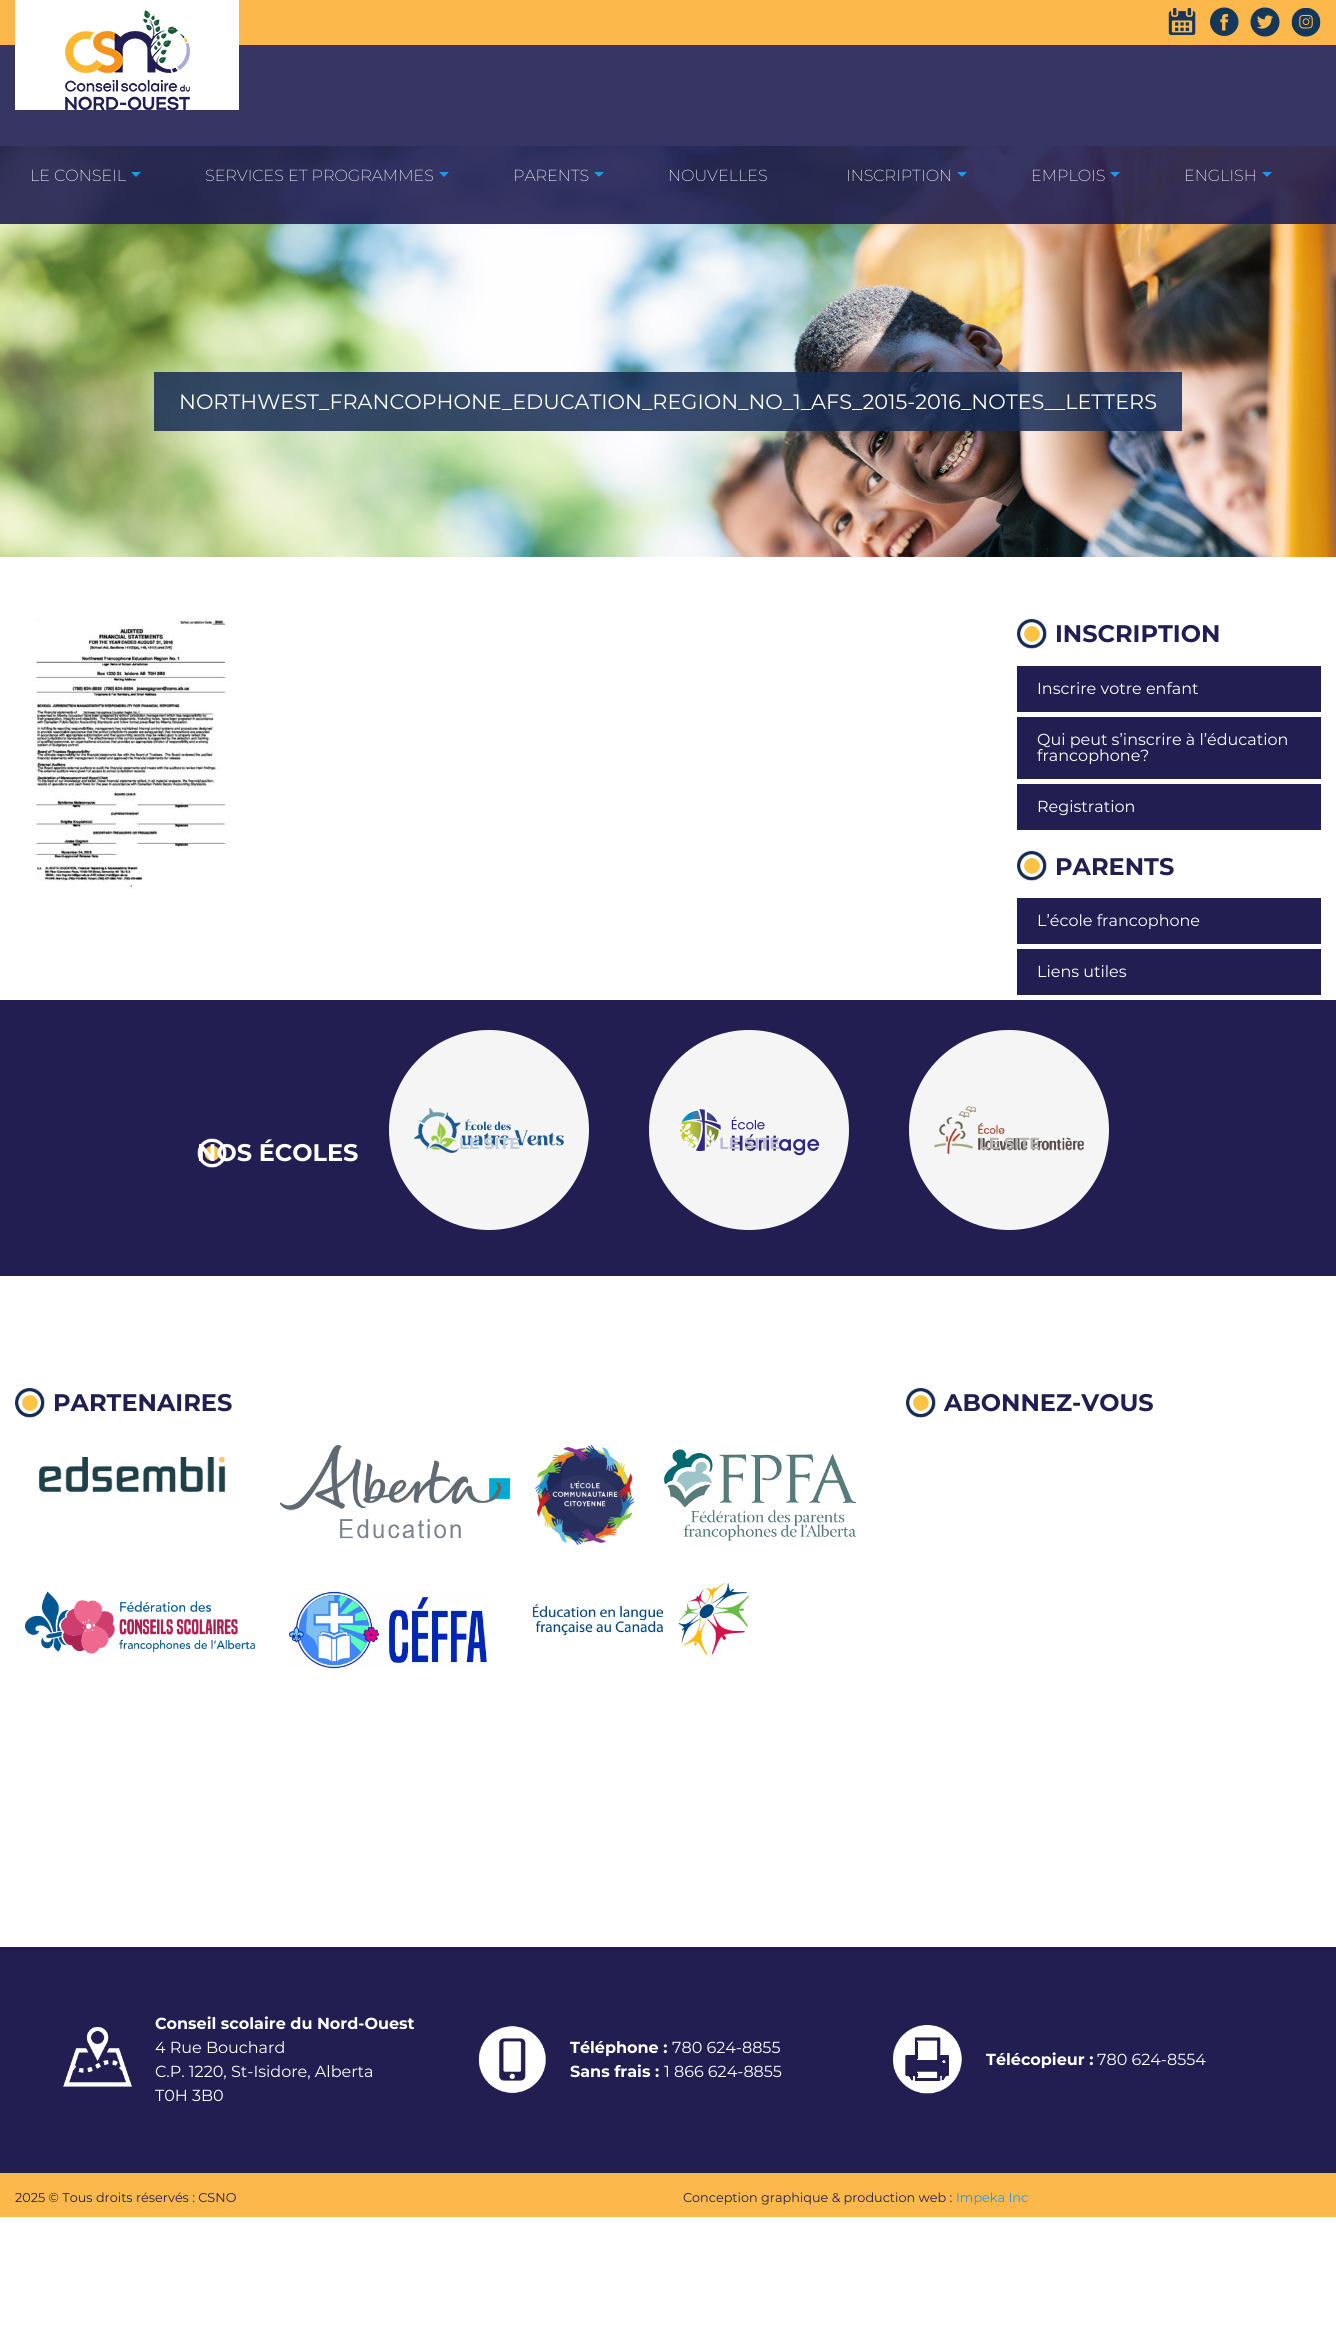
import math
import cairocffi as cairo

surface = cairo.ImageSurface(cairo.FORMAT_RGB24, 1336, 2348)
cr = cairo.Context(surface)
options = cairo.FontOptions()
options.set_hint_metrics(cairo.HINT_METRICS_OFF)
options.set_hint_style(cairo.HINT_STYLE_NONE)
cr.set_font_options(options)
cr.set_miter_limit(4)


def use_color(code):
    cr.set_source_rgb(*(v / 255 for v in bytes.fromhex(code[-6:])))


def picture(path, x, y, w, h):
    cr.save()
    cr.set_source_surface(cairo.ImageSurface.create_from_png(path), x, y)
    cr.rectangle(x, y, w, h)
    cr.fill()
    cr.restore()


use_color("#ffffff")
cr.paint()
use_color("#fdb84c")
cr.rectangle(0, 0, 1336, 45)
cr.fill()
picture("img6.png", 0, 145, 1336, 412)
cr.set_source_rgba(0.133, 0.122, 0.325, 0.9)
cr.rectangle(0, 45, 1336, 179)
cr.fill()
use_color("#ffffff")
cr.rectangle(15, 0, 224, 110)
cr.fill()
picture("img1.png", 65, 10, 125, 100)
picture("img2.png", 1168, 8, 28, 27)
picture("img3.png", 1210, 7, 29, 29)
picture("img4.png", 1250, 7, 30, 30)
picture("img5.png", 1291, 7, 30, 30)
cr.select_font_face("Montserrat ExtraLight")
cr.set_font_size(16)
cr.move_to(30, 181)
cr.show_text("LE CONSEIL")
use_color("#2199e8")
cr.new_path()
cr.move_to(131, 172)
cr.line_to(141, 172)
cr.line_to(136, 177)
cr.close_path()
cr.fill()
use_color("#ffffff")
cr.move_to(205, 181)
cr.show_text("SERVICES ET PROGRAMMES")
use_color("#2199e8")
cr.new_path()
cr.move_to(439, 172)
cr.line_to(449, 172)
cr.line_to(444, 177)
cr.close_path()
cr.fill()
use_color("#ffffff")
cr.move_to(513, 181)
cr.show_text("PARENTS")
use_color("#2199e8")
cr.new_path()
cr.move_to(594, 172)
cr.line_to(604, 172)
cr.line_to(599, 177)
cr.close_path()
cr.fill()
use_color("#ffffff")
cr.move_to(668, 181)
cr.show_text("NOUVELLES")
cr.move_to(846, 181)
cr.show_text("INSCRIPTION")
use_color("#2199e8")
cr.new_path()
cr.move_to(957, 172)
cr.line_to(967, 172)
cr.line_to(962, 177)
cr.close_path()
cr.fill()
use_color("#ffffff")
cr.move_to(1031, 181)
cr.show_text("EMPLOIS")
use_color("#2199e8")
cr.new_path()
cr.move_to(1110, 172)
cr.line_to(1120, 172)
cr.line_to(1115, 177)
cr.close_path()
cr.fill()
use_color("#ffffff")
cr.move_to(1184, 181)
cr.show_text("ENGLISH")
use_color("#2199e8")
cr.new_path()
cr.move_to(1262, 172)
cr.line_to(1272, 172)
cr.line_to(1267, 177)
cr.close_path()
cr.fill()
cr.set_source_rgba(0.09, 0.173, 0.333, 0.85)
cr.rectangle(154, 372, 1028, 59)
cr.fill()
cr.select_font_face("Montserrat")
cr.set_font_size(20.8)
use_color("#ffffff")
cr.move_to(179, 409)
cr.show_text("NORTHWEST_FRANCOPHONE_EDUCATION_REGION_NO_1_AFS_2015-2016_NOTES__LETTERS")
picture("img7.png", 31, 618, 200, 271)
picture("img8.png", 1017, 619, 30, 30)
cr.select_font_face("Montserrat", cairo.FONT_SLANT_NORMAL, cairo.FONT_WEIGHT_BOLD)
cr.set_font_size(24)
use_color("#221e52")
cr.move_to(1055, 642)
cr.show_text("INSCRIPTION")
cr.rectangle(1017, 666, 304, 46)
cr.fill()
cr.select_font_face("Montserrat")
cr.set_font_size(16)
use_color("#ffffff")
cr.move_to(1037, 694)
cr.show_text("Inscrire votre enfant")
use_color("#221e52")
cr.rectangle(1017, 717, 304, 62)
cr.fill()
use_color("#ffffff")
cr.move_to(1037, 745)
cr.show_text("Qui peut s’inscrire à l’éducation")
cr.move_to(1037, 761)
cr.show_text("francophone?")
use_color("#221e52")
cr.rectangle(1017, 784, 304, 46)
cr.fill()
use_color("#ffffff")
cr.move_to(1037, 812)
cr.show_text("Registration")
picture("img8.png", 1017, 851, 30, 30)
cr.select_font_face("Montserrat", cairo.FONT_SLANT_NORMAL, cairo.FONT_WEIGHT_BOLD)
cr.set_font_size(24)
use_color("#221e52")
cr.move_to(1055, 875)
cr.show_text("PARENTS")
cr.rectangle(1017, 898, 304, 46)
cr.fill()
cr.select_font_face("Montserrat")
cr.set_font_size(16)
use_color("#ffffff")
cr.move_to(1037, 926)
cr.show_text("L’école francophone")
use_color("#221e52")
cr.rectangle(1017, 949, 304, 46)
cr.fill()
use_color("#ffffff")
cr.move_to(1037, 977)
cr.show_text("Liens utiles")
use_color("#221e52")
cr.rectangle(0, 1000, 1336, 276)
cr.fill()
picture("img9.png", 197, 1138, 30, 30)
cr.select_font_face("Montserrat", cairo.FONT_SLANT_NORMAL, cairo.FONT_WEIGHT_BOLD)
cr.set_font_size(24)
use_color("#ffffff")
cr.move_to(197, 1161)
cr.show_text("NOS ÉCOLES")
use_color("#f5f5f5")
cr.new_path()
cr.arc(489, 1130, 100, 0, 2 * math.pi)
cr.fill()
picture("img10.png", 414, 1108, 150, 45)
cr.set_font_size(16)
use_color("#c0cfdc")
cr.move_to(459, 1149)
cr.show_text("LE SITE")
use_color("#f5f5f5")
cr.new_path()
cr.arc(749, 1130, 100, 0, 2 * math.pi)
cr.fill()
picture("img11.png", 680, 1109, 140, 47)
use_color("#bebcd4")
cr.move_to(719, 1149)
cr.show_text("LE SITE")
use_color("#f5f5f5")
cr.new_path()
cr.arc(1009, 1130, 100, 0, 2 * math.pi)
cr.fill()
picture("img12.png", 934, 1106, 150, 48)
use_color("#b5b2b1")
cr.move_to(979, 1149)
cr.show_text("LE SITE")
picture("img8.png", 15, 1388, 30, 30)
cr.set_font_size(24)
use_color("#221e52")
cr.move_to(53, 1411)
cr.show_text("PARTENAIRES")
picture("img13.png", 39, 1457, 187, 35)
picture("img14.png", 280, 1445, 230, 94)
picture("img15.png", 535, 1445, 100, 100)
picture("img16.png", 663, 1449, 194, 92)
picture("img17.png", 25, 1591, 230, 63)
picture("img18.png", 287, 1591, 202, 78)
picture("img19.png", 532, 1582, 218, 74)
picture("img8.png", 906, 1388, 30, 30)
cr.move_to(944, 1411)
cr.show_text("ABONNEZ-VOUS")
cr.rectangle(0, 1947, 1336, 226)
cr.fill()
picture("img20.png", 63, 2027, 69, 60)
cr.set_font_size(16)
use_color("#ffffff")
cr.move_to(155, 2029)
cr.show_text("Conseil scolaire du Nord-Ouest")
cr.select_font_face("Montserrat")
cr.move_to(155, 2053)
cr.show_text("4 Rue Bouchard")
cr.move_to(155, 2077)
cr.show_text("C.P. 1220, St-Isidore, Alberta")
cr.move_to(155, 2101)
cr.show_text("T0H 3B0")
picture("img21.png", 478, 2026, 68, 67)
cr.select_font_face("Montserrat", cairo.FONT_SLANT_NORMAL, cairo.FONT_WEIGHT_BOLD)
cr.move_to(570, 2053)
cr.show_text("Téléphone :")
cr.select_font_face("Montserrat")
cr.move_to(672, 2053)
cr.show_text("780 624-8855")
cr.select_font_face("Montserrat", cairo.FONT_SLANT_NORMAL, cairo.FONT_WEIGHT_BOLD)
cr.move_to(570, 2077)
cr.show_text("Sans frais :")
cr.select_font_face("Montserrat")
cr.move_to(664, 2077)
cr.show_text("1 866 624-8855")
picture("img22.png", 893, 2025, 69, 69)
cr.select_font_face("Montserrat", cairo.FONT_SLANT_NORMAL, cairo.FONT_WEIGHT_BOLD)
cr.move_to(986, 2065)
cr.show_text("Télécopieur :")
cr.select_font_face("Montserrat")
cr.move_to(1097, 2065)
cr.show_text("780 624-8554")
use_color("#fdb84c")
cr.rectangle(0, 2173, 1336, 44)
cr.fill()
cr.set_font_size(12.8)
use_color("#221e52")
cr.move_to(15, 2202)
cr.show_text("2025 © Tous droits réservés : CSNO")
cr.move_to(683, 2202)
cr.show_text("Conception graphique & production web :")
use_color("#2199e8")
cr.move_to(956, 2202)
cr.show_text("Impeka Inc")
surface.write_to_png("result.png")
